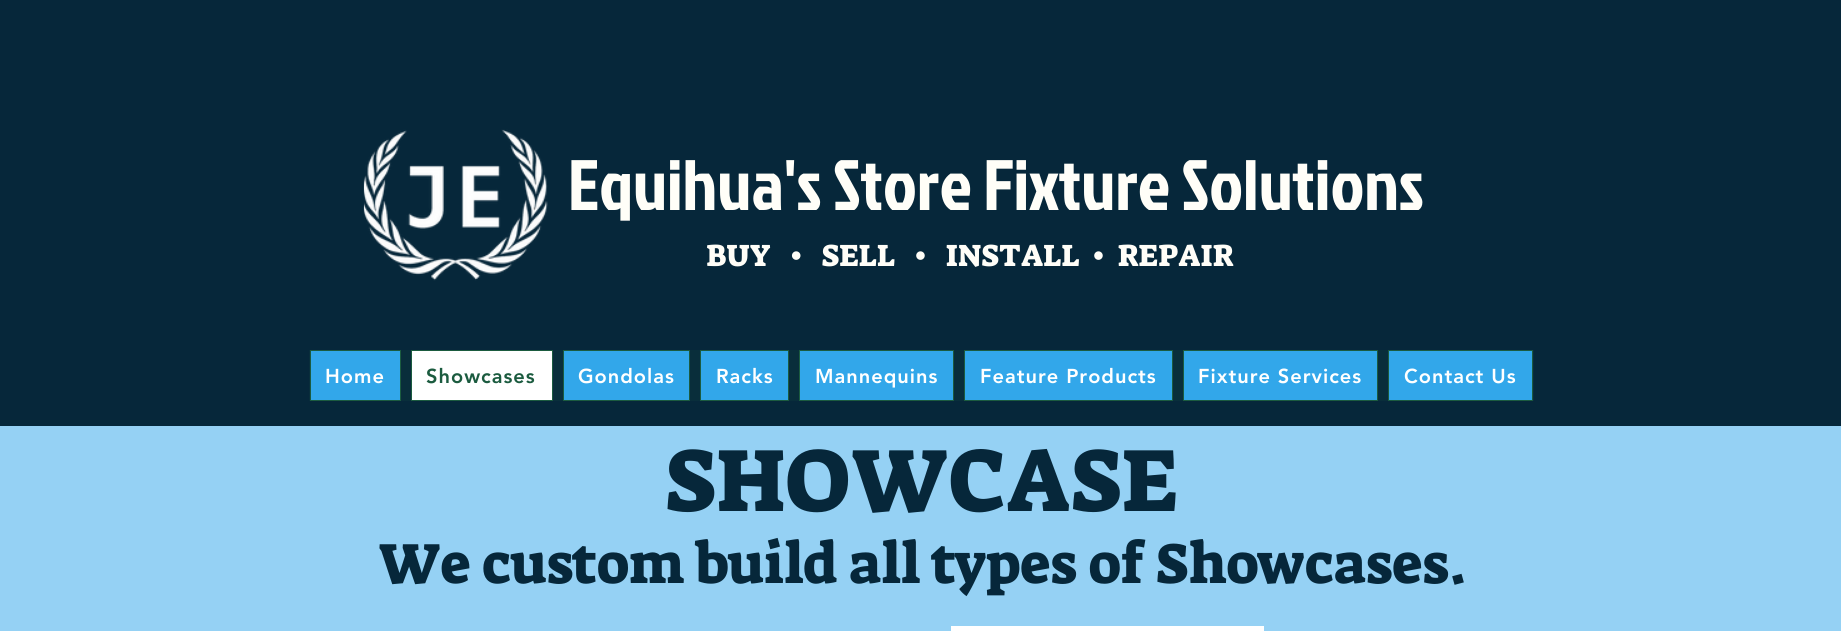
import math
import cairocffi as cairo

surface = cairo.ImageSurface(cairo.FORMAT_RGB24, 1841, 631)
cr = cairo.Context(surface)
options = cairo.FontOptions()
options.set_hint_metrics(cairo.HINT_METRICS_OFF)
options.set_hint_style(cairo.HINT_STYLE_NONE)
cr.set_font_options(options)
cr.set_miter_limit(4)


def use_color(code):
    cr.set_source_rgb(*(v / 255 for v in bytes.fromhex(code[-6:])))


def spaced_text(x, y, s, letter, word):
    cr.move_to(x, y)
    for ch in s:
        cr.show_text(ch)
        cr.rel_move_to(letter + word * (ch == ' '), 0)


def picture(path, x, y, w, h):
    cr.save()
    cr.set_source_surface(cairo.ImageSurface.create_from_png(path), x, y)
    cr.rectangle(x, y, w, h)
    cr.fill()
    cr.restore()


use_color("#95d1f4")
cr.paint()
use_color("#06273a")
cr.rectangle(0, 0, 1841, 426)
cr.fill()
picture("img1.png", 363, 129, 185, 152)
cr.select_font_face("Jockey One")
cr.set_font_size(71.25)
use_color("#fffef8")
cr.move_to(568, 210)
cr.show_text("Equihua's Store Fixture Solutions")
cr.select_font_face("Suez One")
cr.set_font_size(31.25)
cr.move_to(706, 266)
cr.show_text("BUY   •   SELL   •   INSTALL  •  REPAIR")
use_color("#092e3b")
cr.rectangle(309, 350, 1225, 51)
cr.fill()
use_color("#32a7ea")
cr.rectangle(310.5, 350.5, 90, 50)
cr.fill_preserve()
use_color("#1b5b3f")
cr.set_line_width(1)
cr.stroke()
cr.select_font_face("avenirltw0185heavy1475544 Black")
cr.set_font_size(20)
use_color("#ffffff")
spaced_text(325, 383, "Home", 1, 0)
cr.rectangle(411.5, 350.5, 141, 50)
cr.fill_preserve()
use_color("#1b5b3f")
cr.stroke()
spaced_text(426, 383, "Showcases", 1, 0)
use_color("#32a7ea")
cr.rectangle(563.5, 350.5, 126, 50)
cr.fill_preserve()
use_color("#1b5b3f")
cr.stroke()
use_color("#ffffff")
spaced_text(578, 383, "Gondolas", 1, 0)
use_color("#32a7ea")
cr.rectangle(700.5, 350.5, 88, 50)
cr.fill_preserve()
use_color("#1b5b3f")
cr.stroke()
use_color("#ffffff")
spaced_text(716, 383, "Racks", 1, 0)
use_color("#32a7ea")
cr.rectangle(799.5, 350.5, 154, 50)
cr.fill_preserve()
use_color("#1b5b3f")
cr.stroke()
use_color("#ffffff")
spaced_text(815, 383, "Mannequins", 1, 0)
use_color("#32a7ea")
cr.rectangle(964.5, 350.5, 208, 50)
cr.fill_preserve()
use_color("#1b5b3f")
cr.stroke()
use_color("#ffffff")
spaced_text(980, 383, "Feature Products", 1, 0)
use_color("#32a7ea")
cr.rectangle(1183.5, 350.5, 194, 50)
cr.fill_preserve()
use_color("#1b5b3f")
cr.stroke()
use_color("#ffffff")
spaced_text(1198, 383, "Fixture Services", 1, 0)
use_color("#32a7ea")
cr.rectangle(1388.5, 350.5, 144, 50)
cr.fill_preserve()
use_color("#1b5b3f")
cr.stroke()
use_color("#ffffff")
spaced_text(1404, 383, "Contact Us", 1, 0)
cr.select_font_face("Suez One")
cr.set_font_size(90)
use_color("#06273a")
cr.move_to(665, 511)
cr.show_text("SHOWCASE")
cr.set_font_size(57.5)
cr.move_to(378, 583)
cr.show_text("We custom build all types of Showcases.")
use_color("#ffffff")
cr.rectangle(951, 626, 313, 5)
cr.fill()
surface.write_to_png("result.png")
